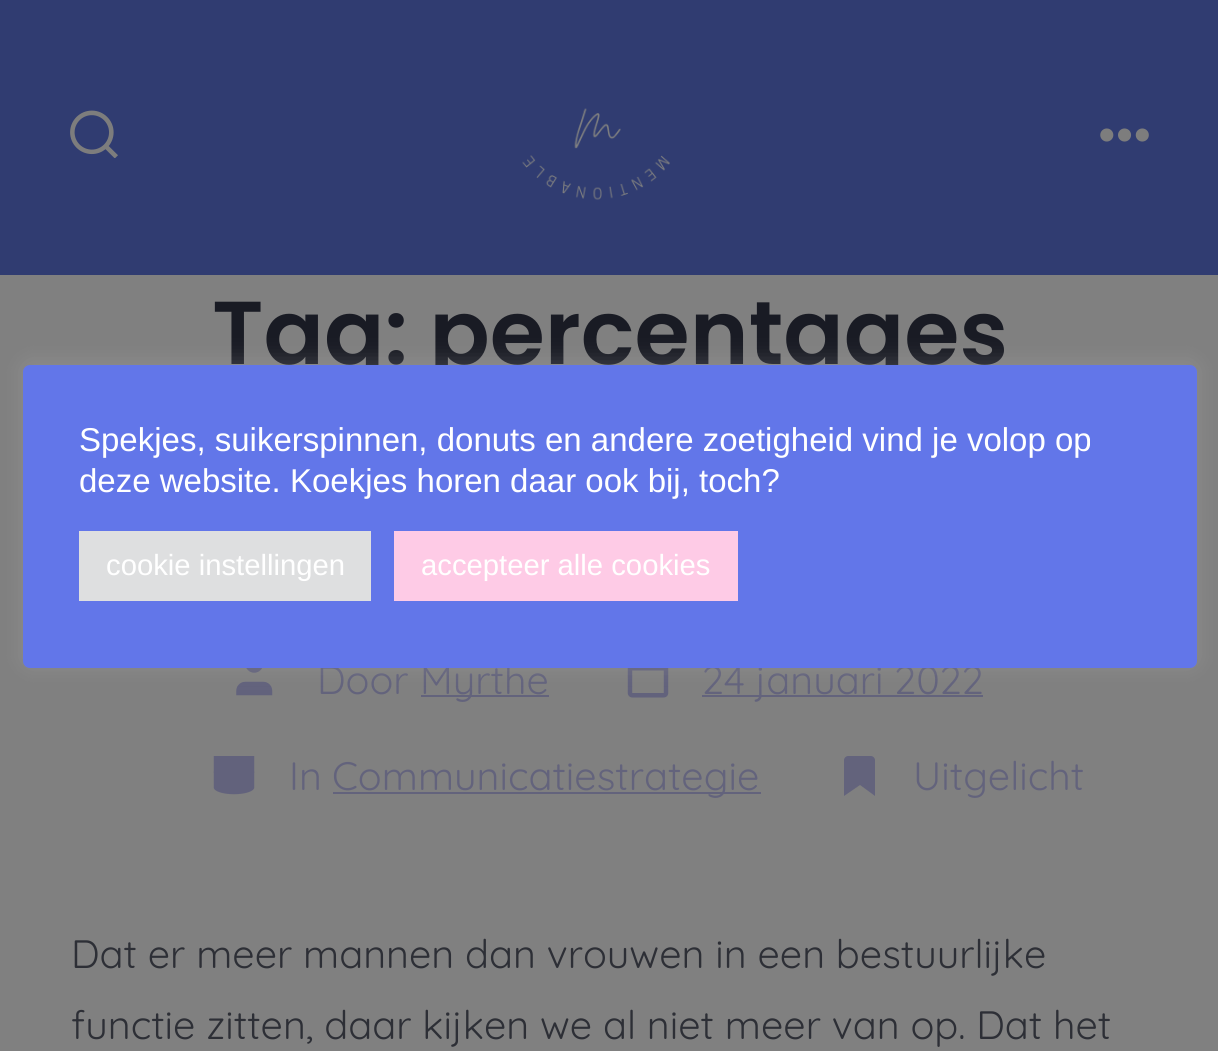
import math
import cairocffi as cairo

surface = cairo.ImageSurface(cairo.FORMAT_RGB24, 1218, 1051)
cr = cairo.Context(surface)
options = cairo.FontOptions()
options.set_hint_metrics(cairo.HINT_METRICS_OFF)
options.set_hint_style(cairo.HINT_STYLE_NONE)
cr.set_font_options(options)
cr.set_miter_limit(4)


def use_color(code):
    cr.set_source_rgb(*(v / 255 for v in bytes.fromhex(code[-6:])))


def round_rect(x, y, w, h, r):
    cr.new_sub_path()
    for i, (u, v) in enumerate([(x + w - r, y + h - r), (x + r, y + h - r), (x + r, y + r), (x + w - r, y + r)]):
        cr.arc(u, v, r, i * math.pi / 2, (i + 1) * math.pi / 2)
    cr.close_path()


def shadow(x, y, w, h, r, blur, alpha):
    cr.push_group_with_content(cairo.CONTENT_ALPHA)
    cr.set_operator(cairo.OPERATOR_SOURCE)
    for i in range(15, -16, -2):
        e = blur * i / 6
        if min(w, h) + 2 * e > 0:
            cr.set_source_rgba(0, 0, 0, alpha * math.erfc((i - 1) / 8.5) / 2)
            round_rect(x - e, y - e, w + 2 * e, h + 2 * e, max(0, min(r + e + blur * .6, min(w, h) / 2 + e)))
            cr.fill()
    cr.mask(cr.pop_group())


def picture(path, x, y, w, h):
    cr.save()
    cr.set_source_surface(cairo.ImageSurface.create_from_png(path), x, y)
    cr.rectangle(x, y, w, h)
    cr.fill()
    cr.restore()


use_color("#808080")
cr.paint()
use_color("#303c71")
cr.rectangle(0, 0, 1218, 275)
cr.fill()
picture("img1.png", 70, 110, 48, 48)
picture("img2.png", 522, 108, 148, 92)
picture("img3.png", 1100, 128, 49, 14)
cr.select_font_face("Poppins SemiBold")
cr.set_font_size(89.25)
use_color("#191b24")
cr.move_to(212, 364)
cr.show_text("Tag: percentages")
picture("img4.png", 236, 668, 37, 28)
cr.select_font_face("Quicksand")
cr.set_font_size(39.6)
use_color("#63637c")
cr.move_to(317, 694)
cr.show_text("Door")
cr.rectangle(421, 695, 128, 2)
cr.fill()
cr.move_to(420, 694)
cr.show_text("Myrthe")
picture("img5.png", 627, 668, 42, 30)
cr.rectangle(702, 695, 281, 2)
cr.fill()
cr.move_to(702, 694)
cr.show_text("24 januari 2022")
picture("img6.png", 213, 756, 42, 39)
cr.move_to(289, 790)
cr.show_text("In")
cr.rectangle(333, 792, 428, 2)
cr.fill()
cr.move_to(332, 790)
cr.show_text("Communicatiestrategie")
cr.new_path()
cr.move_to(875, 796)
cr.line_to(860, 785)
cr.line_to(844, 796)
cr.line_to(844, 760)
cr.curve_to(844, 758, 846, 756, 848, 756)
cr.line_to(871, 756)
cr.curve_to(873, 756, 875, 758, 875, 760)
cr.close_path()
cr.fill()
cr.move_to(913, 790)
cr.show_text("Uitgelicht")
use_color("#2d2f36")
cr.move_to(71, 968)
cr.show_text("Dat er meer mannen dan vrouwen in een bestuurlijke")
cr.move_to(71, 1039)
cr.show_text("functie zitten, daar kijken we al niet meer van op. Dat het")
use_color("#acabab")
shadow(23, 362, 1174, 304, 7, 11, 0.3)
use_color("#6276e9")
round_rect(23, 365, 1174, 303, 7)
cr.fill()
cr.select_font_face("Liberation Sans")
cr.set_font_size(33)
use_color("#ffffff")
cr.move_to(79, 451)
cr.show_text("Spekjes, suikerspinnen, donuts en andere zoetigheid vind je volop op")
cr.move_to(79, 492)
cr.show_text("deze website. Koekjes horen daar ook bij, toch?")
use_color("#dedfe0")
cr.rectangle(79, 531, 292, 70)
cr.fill()
cr.set_font_size(29.25)
use_color("#ffffff")
cr.move_to(106, 575)
cr.show_text("cookie instellingen")
use_color("#fecbe6")
cr.rectangle(394, 531, 344, 70)
cr.fill()
use_color("#ffffff")
cr.move_to(421, 575)
cr.show_text("accepteer alle cookies")
surface.write_to_png("result.png")
